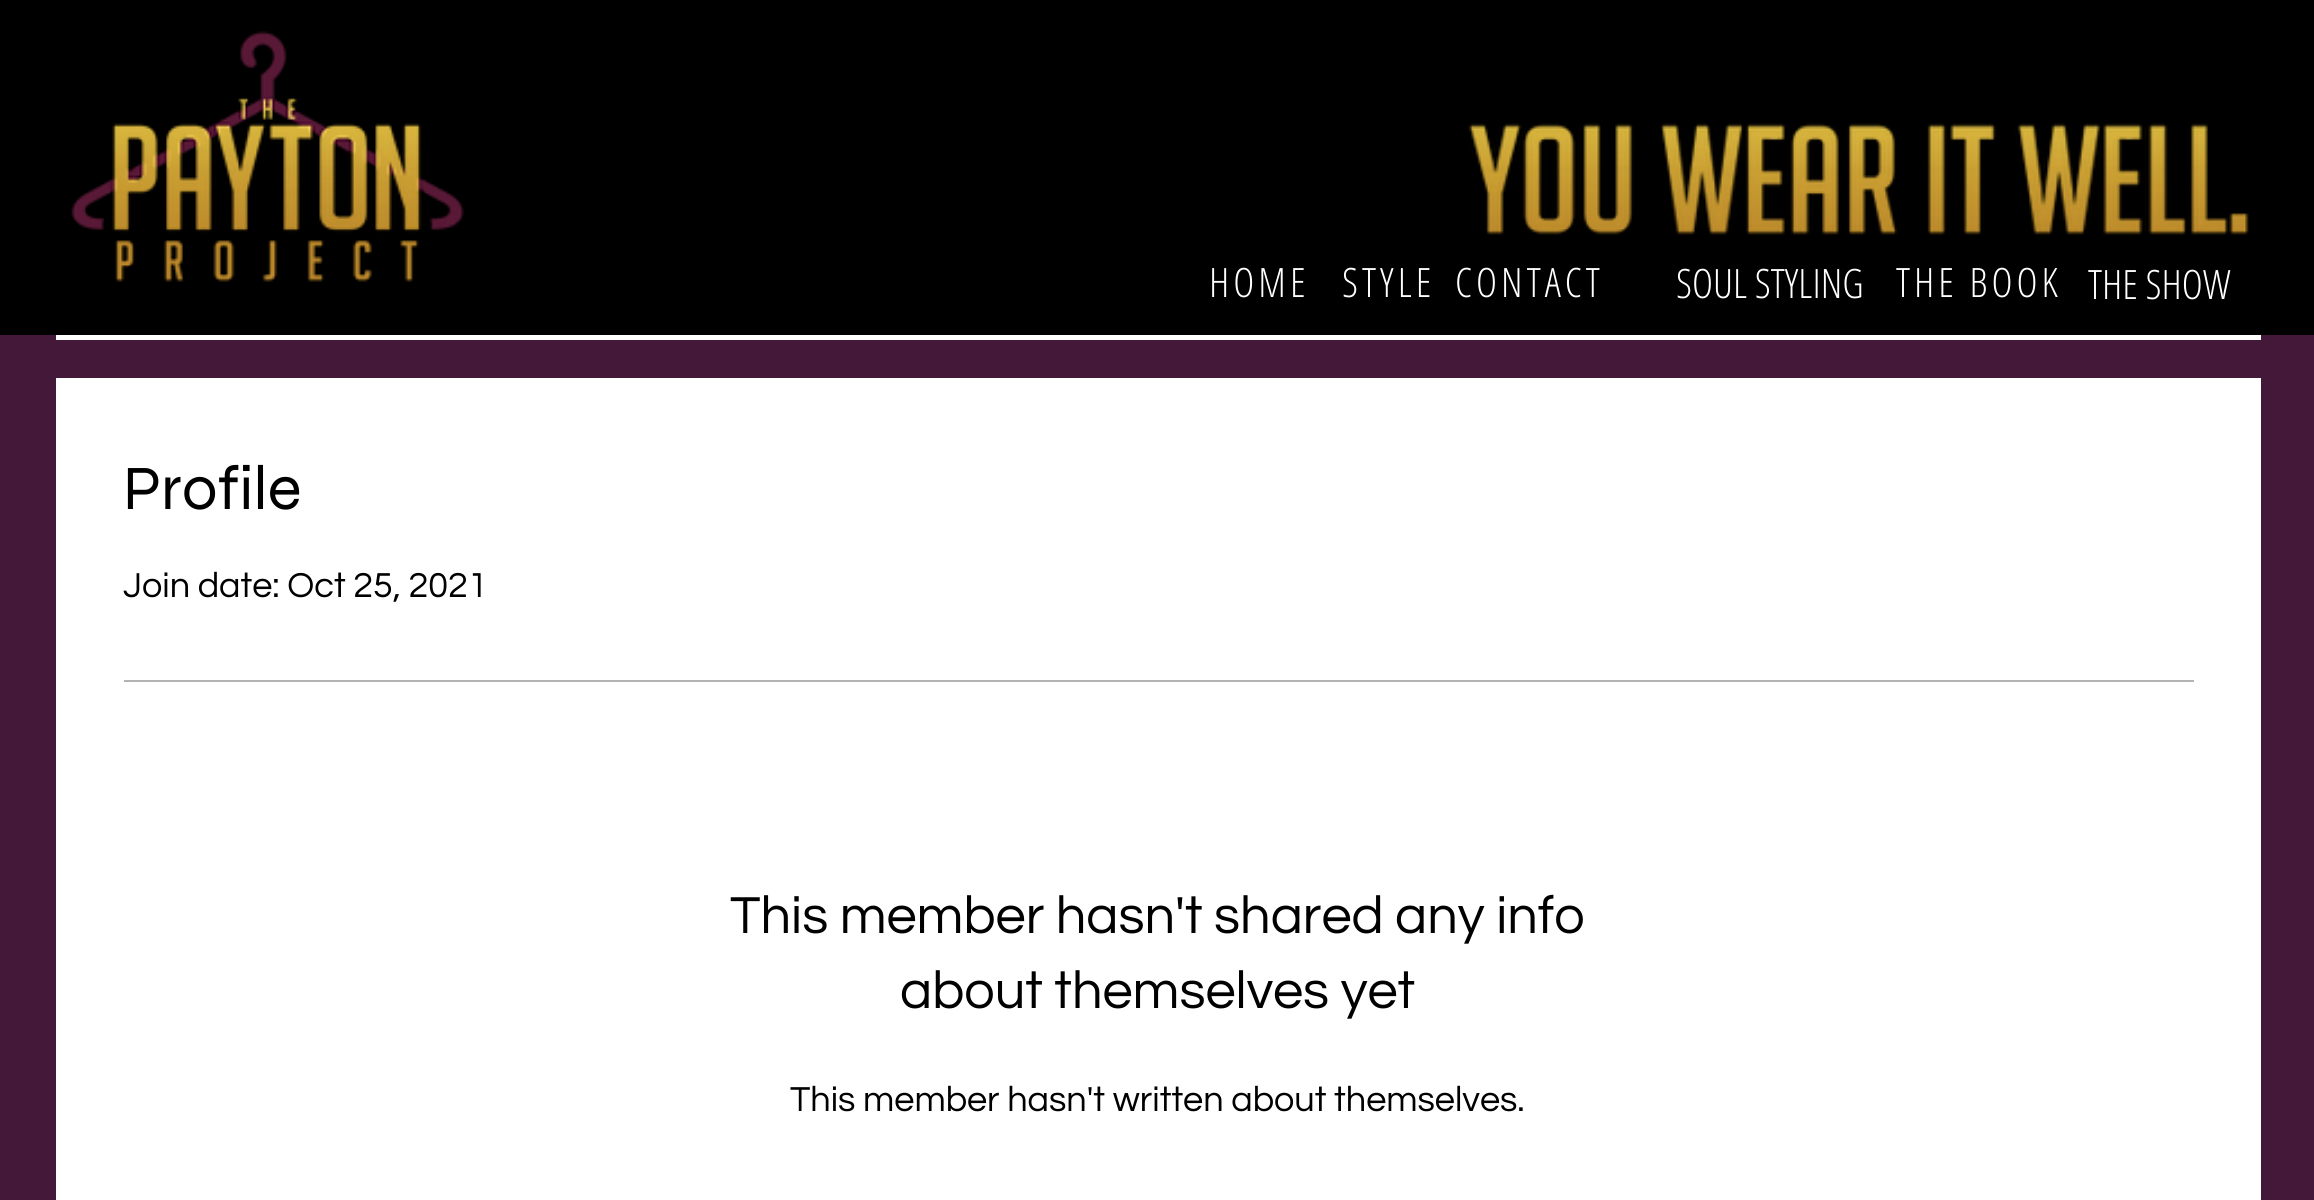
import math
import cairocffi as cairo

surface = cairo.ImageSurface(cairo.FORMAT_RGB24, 2314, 1200)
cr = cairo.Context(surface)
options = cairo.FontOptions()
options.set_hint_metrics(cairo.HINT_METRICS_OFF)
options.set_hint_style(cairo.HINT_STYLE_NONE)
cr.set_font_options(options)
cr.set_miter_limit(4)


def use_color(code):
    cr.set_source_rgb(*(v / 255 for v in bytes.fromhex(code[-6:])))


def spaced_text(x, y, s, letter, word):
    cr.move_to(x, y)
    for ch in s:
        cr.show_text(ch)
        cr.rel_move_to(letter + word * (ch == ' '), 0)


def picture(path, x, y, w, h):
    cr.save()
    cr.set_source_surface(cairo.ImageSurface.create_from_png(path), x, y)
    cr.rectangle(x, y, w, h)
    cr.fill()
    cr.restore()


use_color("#441839")
cr.paint()
use_color("#000000")
cr.rectangle(0, 0, 2314, 335)
cr.fill()
picture("img1.png", 71, 31, 393, 251)
picture("img2.png", 1468, 123, 781, 112)
cr.select_font_face("Open Sans Condensed Light")
cr.set_font_size(40.5)
use_color("#ffffff")
spaced_text(1209, 297, "HOME", 4, 0)
spaced_text(1342, 297, "STYLE", 4, 0)
spaced_text(1455, 297, "CONTACT", 4, 0)
cr.move_to(1676, 298)
cr.show_text("SOUL STYLING")
spaced_text(1896, 297, "THE BOOK", 4, 0)
cr.move_to(2088, 299)
cr.show_text("THE SHOW")
cr.rectangle(56, 335, 2205, 5)
cr.fill()
cr.rectangle(56, 378, 2205, 822)
cr.fill()
cr.select_font_face("Syne")
cr.set_font_size(63)
use_color("#000000")
cr.move_to(123, 509)
cr.show_text("Profile")
cr.select_font_face("Questrial")
cr.set_font_size(36)
cr.move_to(123, 597)
cr.show_text("Join date: Oct 25, 2021")
use_color("#b3b3b3")
cr.rectangle(124, 680, 2070, 2)
cr.fill()
cr.set_font_size(54)
use_color("#000000")
cr.move_to(730, 933)
cr.show_text("This member hasn't shared any info")
cr.move_to(900, 1008)
cr.show_text("about themselves yet")
cr.set_font_size(36)
cr.move_to(790, 1111)
cr.show_text("This member hasn't written about themselves.")
surface.write_to_png("result.png")
